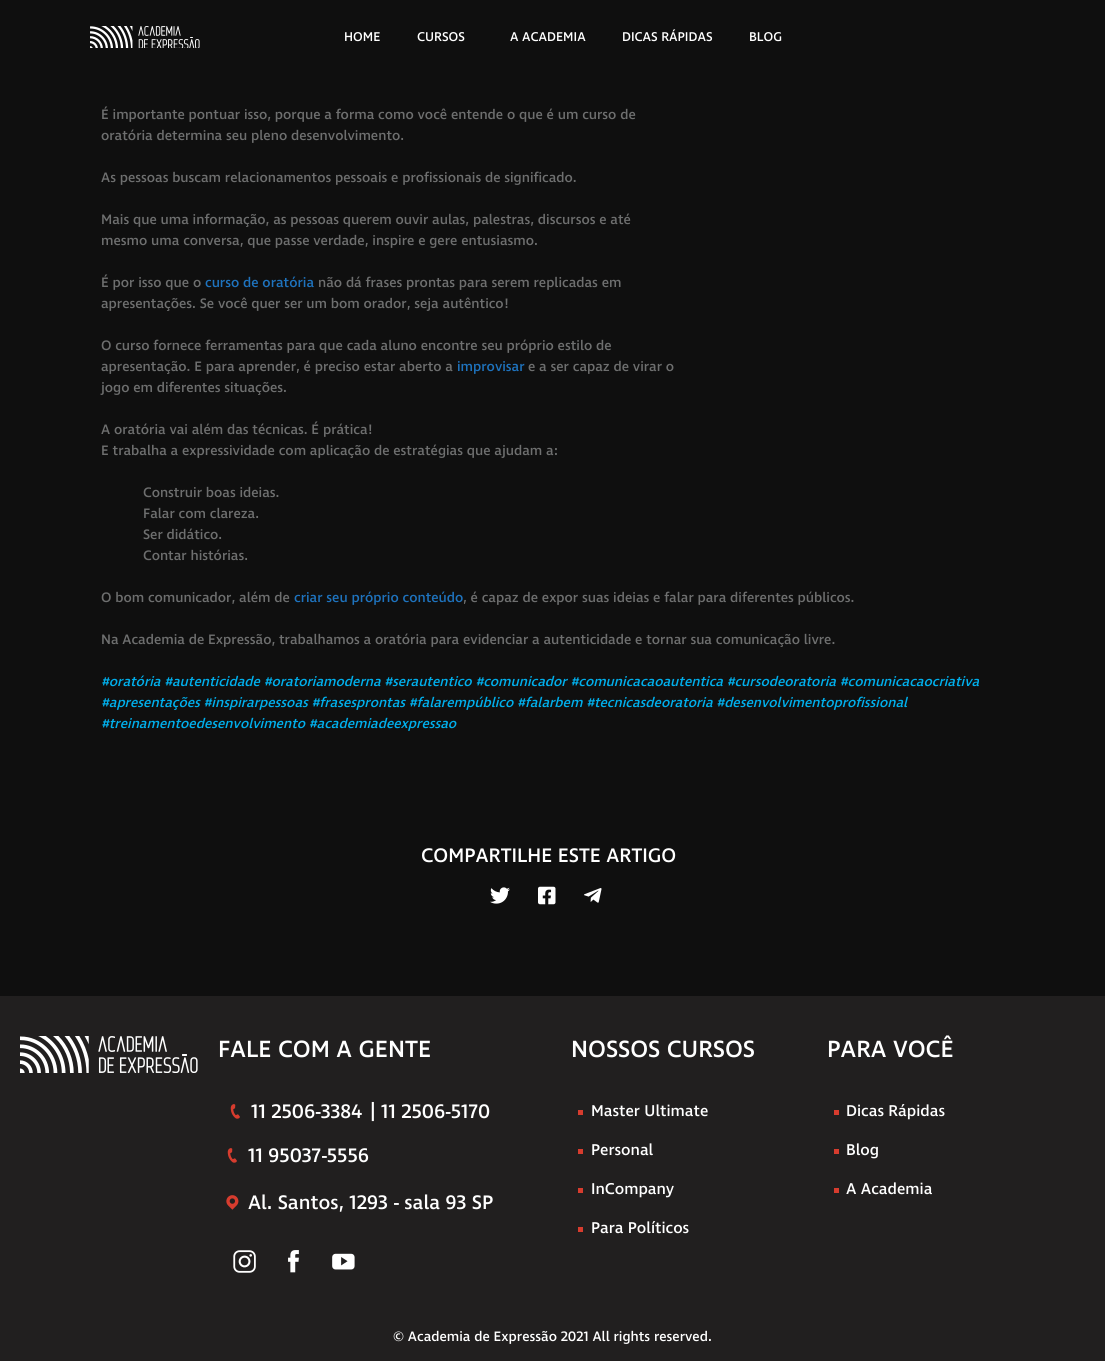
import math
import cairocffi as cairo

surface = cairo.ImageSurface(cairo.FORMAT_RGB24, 1105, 1361)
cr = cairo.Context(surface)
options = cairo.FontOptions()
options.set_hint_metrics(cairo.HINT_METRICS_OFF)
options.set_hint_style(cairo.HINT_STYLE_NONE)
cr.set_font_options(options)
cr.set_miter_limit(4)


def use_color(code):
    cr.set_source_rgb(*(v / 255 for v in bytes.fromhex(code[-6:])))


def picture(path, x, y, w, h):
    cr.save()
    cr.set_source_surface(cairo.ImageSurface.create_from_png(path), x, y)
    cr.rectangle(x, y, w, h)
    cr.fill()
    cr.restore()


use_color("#211f1f")
cr.paint()
use_color("#0f0f0f")
cr.rectangle(0, 0, 1105, 996)
cr.fill()
picture("img1.png", 90, 26, 110, 22)
cr.select_font_face("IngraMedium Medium")
cr.set_font_size(13)
use_color("#ffffff")
cr.move_to(344, 41)
cr.show_text("HOME")
cr.move_to(417, 41)
cr.show_text("CURSOS")
cr.move_to(510, 41)
cr.show_text("A ACADEMIA")
cr.move_to(622, 41)
cr.show_text("DICAS RÁPIDAS")
cr.move_to(749, 41)
cr.show_text("BLOG")
cr.set_font_size(14)
use_color("#6e6f6f")
cr.move_to(101, 119)
cr.show_text("É importante pontuar isso, porque a forma como você entende o que é um curso de")
cr.move_to(101, 140)
cr.show_text("oratória determina seu pleno desenvolvimento.")
cr.move_to(101, 182)
cr.show_text("As pessoas buscam relacionamentos pessoais e profissionais de significado.")
cr.move_to(101, 224)
cr.show_text("Mais que uma informação, as pessoas querem ouvir aulas, palestras, discursos e até")
cr.move_to(101, 245)
cr.show_text("mesmo uma conversa, que passe verdade, inspire e gere entusiasmo.")
cr.move_to(101, 287)
cr.show_text("É por isso que o")
use_color("#1e73be")
cr.move_to(205, 287)
cr.show_text("curso de oratória")
use_color("#6e6f6f")
cr.move_to(318, 287)
cr.show_text("não dá frases prontas para serem replicadas em")
cr.move_to(101, 308)
cr.show_text("apresentações. Se você quer ser um bom orador, seja autêntico!")
cr.move_to(101, 350)
cr.show_text("O curso fornece ferramentas para que cada aluno encontre seu próprio estilo de")
cr.move_to(101, 371)
cr.show_text("apresentação. E para aprender, é preciso estar aberto a")
use_color("#1e73be")
cr.move_to(457, 371)
cr.show_text("improvisar")
use_color("#6e6f6f")
cr.move_to(528, 371)
cr.show_text("e a ser capaz de virar o")
cr.move_to(101, 392)
cr.show_text("jogo em diferentes situações.")
cr.move_to(101, 434)
cr.show_text("A oratória vai além das técnicas. É prática!")
cr.move_to(101, 455)
cr.show_text("E trabalha a expressividade com aplicação de estratégias que ajudam a:")
cr.move_to(143, 497)
cr.show_text("Construir boas ideias.")
cr.move_to(143, 518)
cr.show_text("Falar com clareza.")
cr.move_to(143, 539)
cr.show_text("Ser didático.")
cr.move_to(143, 560)
cr.show_text("Contar histórias.")
cr.move_to(101, 602)
cr.show_text("O bom comunicador, além de")
use_color("#1e73be")
cr.move_to(294, 602)
cr.show_text("criar seu próprio conteúdo")
use_color("#6e6f6f")
cr.move_to(463, 602)
cr.show_text(", é capaz de expor suas ideias e falar para diferentes públicos.")
cr.move_to(101, 644)
cr.show_text("Na Academia de Expressão, trabalhamos a oratória para evidenciar a autenticidade e tornar sua comunicação livre.")
cr.select_font_face("IngraMedium Medium", cairo.FONT_SLANT_ITALIC)
use_color("#00afec")
cr.move_to(101, 686)
cr.show_text("#oratória #autenticidade #oratoriamoderna #serautentico #comunicador #comunicacaoautentica #cursodeoratoria #comunicacaocriativa")
cr.move_to(101, 707)
cr.show_text("#apresentações #inspirarpessoas #frasesprontas #falarempúblico #falarbem #tecnicasdeoratoria #desenvolvimentoprofissional")
cr.move_to(101, 728)
cr.show_text("#treinamentoedesenvolvimento #academiadeexpressao")
cr.select_font_face("IngraMedium Medium")
cr.set_font_size(20)
use_color("#ffffff")
cr.move_to(421, 862)
cr.show_text("COMPARTILHE ESTE ARTIGO")
picture("img2.png", 490, 887, 20, 17)
picture("img3.png", 538, 886, 18, 19)
picture("img4.png", 584, 888, 18, 15)
picture("img5.png", 20, 1036, 178, 37)
cr.set_font_size(24)
cr.move_to(218, 1057)
cr.show_text("FALE COM A GENTE")
picture("img6.png", 230, 1104, 10, 15)
cr.set_font_size(20)
cr.move_to(251, 1118)
cr.show_text("11 2506-3384")
cr.move_to(370, 1118)
cr.show_text("| 11 2506-5170")
picture("img6.png", 227, 1148, 10, 15)
cr.move_to(248, 1162)
cr.show_text("11 95037-5556")
picture("img7.png", 226, 1195, 13, 15)
cr.move_to(248, 1209)
cr.show_text("Al. Santos, 1293 - sala 93 SP")
picture("img8.png", 233, 1250, 23, 23)
picture("img9.png", 288, 1250, 11, 23)
picture("img10.png", 332, 1253, 23, 17)
cr.set_font_size(24)
cr.move_to(571, 1057)
cr.show_text("NOSSOS CURSOS")
use_color("#d73c2e")
cr.rectangle(578, 1110, 5, 5)
cr.fill()
cr.set_font_size(16)
use_color("#ffffff")
cr.move_to(591, 1116)
cr.show_text("Master Ultimate")
use_color("#d73c2e")
cr.rectangle(578, 1149, 5, 5)
cr.fill()
use_color("#ffffff")
cr.move_to(591, 1155)
cr.show_text("Personal")
use_color("#d73c2e")
cr.rectangle(578, 1188, 5, 5)
cr.fill()
use_color("#ffffff")
cr.move_to(591, 1194)
cr.show_text("InCompany")
use_color("#d73c2e")
cr.rectangle(578, 1227, 5, 5)
cr.fill()
use_color("#ffffff")
cr.move_to(591, 1233)
cr.show_text("Para Políticos")
cr.set_font_size(24)
cr.move_to(827, 1057)
cr.show_text("PARA VOCÊ")
use_color("#d73c2e")
cr.rectangle(834, 1110, 5, 5)
cr.fill()
cr.set_font_size(16)
use_color("#ffffff")
cr.move_to(846, 1116)
cr.show_text("Dicas Rápidas")
use_color("#d73c2e")
cr.rectangle(834, 1149, 5, 5)
cr.fill()
use_color("#ffffff")
cr.move_to(846, 1155)
cr.show_text("Blog")
use_color("#d73c2e")
cr.rectangle(834, 1188, 5, 5)
cr.fill()
use_color("#ffffff")
cr.move_to(846, 1194)
cr.show_text("A Academia")
cr.set_font_size(14)
cr.move_to(393, 1341)
cr.show_text("© Academia de Expressão 2021 All rights reserved.")
surface.write_to_png("result.png")
